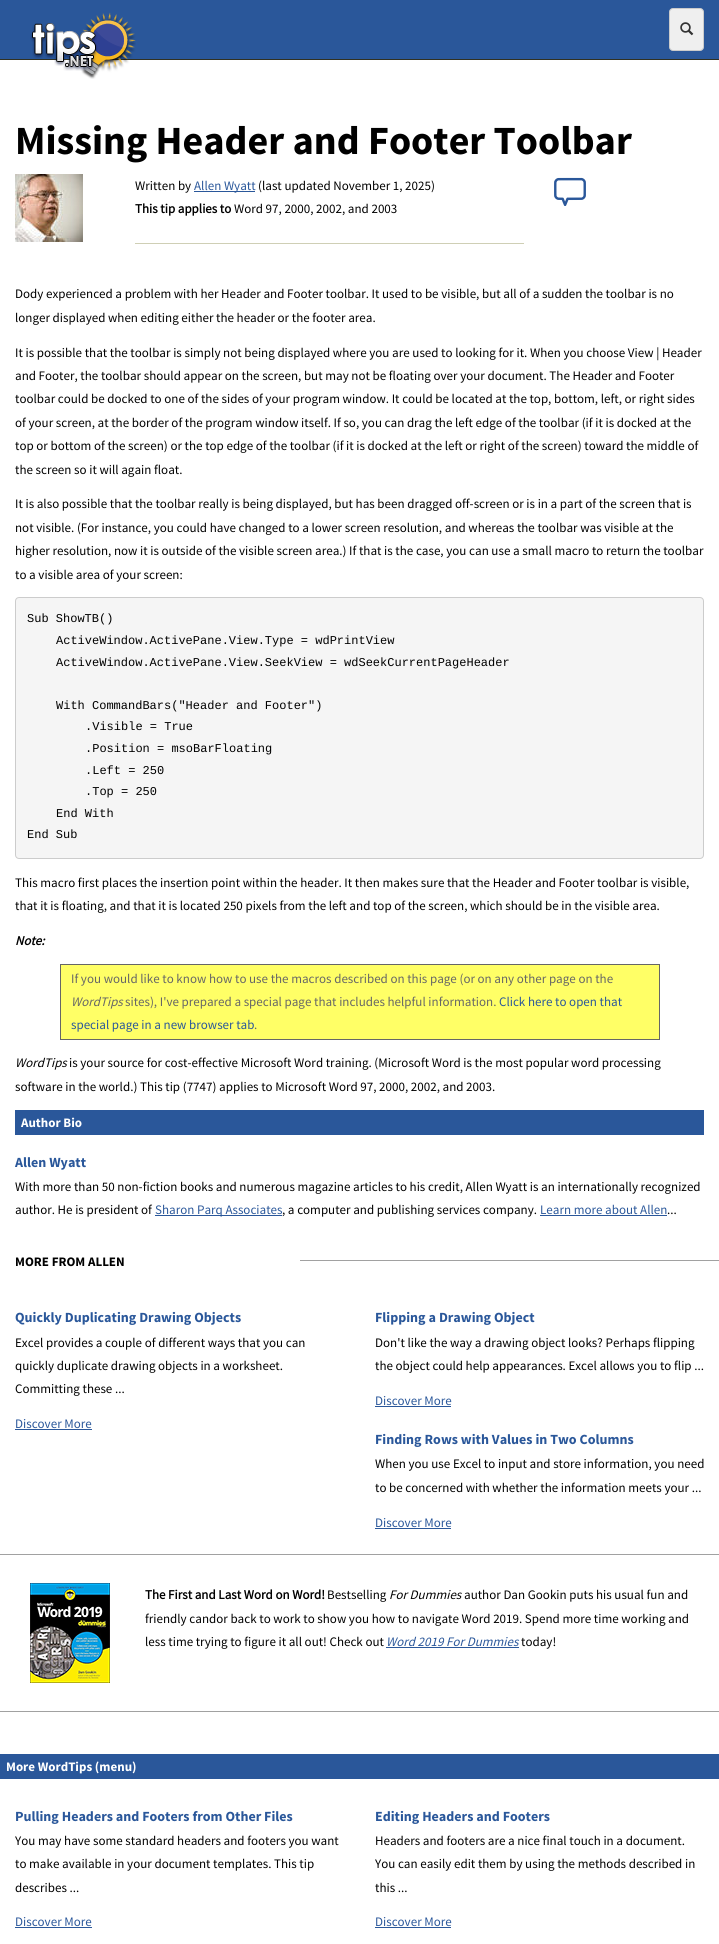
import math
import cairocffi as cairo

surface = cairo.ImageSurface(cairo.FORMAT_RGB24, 719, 1944)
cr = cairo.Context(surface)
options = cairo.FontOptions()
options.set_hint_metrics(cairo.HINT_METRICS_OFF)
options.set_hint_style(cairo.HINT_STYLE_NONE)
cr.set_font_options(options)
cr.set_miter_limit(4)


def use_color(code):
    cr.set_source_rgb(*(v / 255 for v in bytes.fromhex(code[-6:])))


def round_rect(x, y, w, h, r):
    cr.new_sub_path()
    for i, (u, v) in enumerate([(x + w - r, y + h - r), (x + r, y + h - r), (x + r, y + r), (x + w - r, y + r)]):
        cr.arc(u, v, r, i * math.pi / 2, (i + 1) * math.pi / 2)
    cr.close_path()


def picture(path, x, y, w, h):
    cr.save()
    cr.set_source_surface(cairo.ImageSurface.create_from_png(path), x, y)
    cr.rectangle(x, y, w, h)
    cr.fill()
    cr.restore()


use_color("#ffffff")
cr.paint()
use_color("#2a579a")
cr.rectangle(0, 0, 719, 59)
cr.fill()
use_color("#313121")
cr.rectangle(0, 59, 719, 1)
cr.fill()
picture("img1.png", 30, 12, 106, 67)
use_color("#efefef")
round_rect(669.5, 8.5, 34, 42, 3.5)
cr.fill_preserve()
use_color("#cbcbcb")
cr.set_line_width(1)
cr.stroke()
picture("img2.png", 680, 22, 14, 14)
cr.select_font_face("Source Sans Pro", cairo.FONT_SLANT_NORMAL, cairo.FONT_WEIGHT_BOLD)
cr.set_font_size(40)
use_color("#000000")
cr.move_to(15, 154)
cr.show_text("Missing Header and Footer Toolbar")
picture("img3.png", 15, 174, 68, 68)
cr.select_font_face("Source Sans Pro")
cr.set_font_size(13)
cr.move_to(135, 190)
cr.show_text("Written by")
use_color("#2a579a")
cr.rectangle(194, 191, 61, 1)
cr.fill()
cr.move_to(194, 190)
cr.show_text("Allen Wyatt")
use_color("#000000")
cr.move_to(258, 190)
cr.show_text("(last updated November 1, 2025)")
cr.select_font_face("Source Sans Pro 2", cairo.FONT_SLANT_NORMAL, cairo.FONT_WEIGHT_BOLD)
cr.move_to(135, 213)
cr.show_text("This tip applies to")
cr.select_font_face("Source Sans Pro")
cr.move_to(234, 213)
cr.show_text("Word 97, 2000, 2002, and 2003")
use_color("#cfcfb5")
cr.rectangle(135, 243, 389, 1)
cr.fill()
picture("img4.png", 554, 177, 32, 29)
use_color("#000000")
cr.move_to(15, 298)
cr.show_text("Dody experienced a problem with her Header and Footer toolbar. It used to be visible, but all of a sudden the toolbar is no")
cr.move_to(15, 322)
cr.show_text("longer displayed when editing either the header or the footer area.")
cr.move_to(15, 357)
cr.show_text("It is possible that the toolbar is simply not being displayed where you are used to looking for it. When you choose View | Header")
cr.move_to(15, 380)
cr.show_text("and Footer, the toolbar should appear on the screen, but may not be floating over your document. The Header and Footer")
cr.move_to(15, 403)
cr.show_text("toolbar could be docked to one of the sides of your program window. It could be located at the top, bottom, left, or right sides")
cr.move_to(15, 427)
cr.show_text("of your screen, at the border of the program window itself. If so, you can drag the left edge of the toolbar (if it is docked at the")
cr.move_to(15, 450)
cr.show_text("top or bottom of the screen) or the top edge of the toolbar (if it is docked at the left or right of the screen) toward the middle of")
cr.move_to(15, 474)
cr.show_text("the screen so it will again float.")
cr.move_to(15, 508)
cr.show_text("It is also possible that the toolbar really is being displayed, but has been dragged off-screen or is in a part of the screen that is")
cr.move_to(15, 532)
cr.show_text("not visible. (For instance, you could have changed to a lower screen resolution, and whereas the toolbar was visible at the")
cr.move_to(15, 555)
cr.show_text("higher resolution, now it is outside of the visible screen area.) If that is the case, you can use a small macro to return the toolbar")
cr.move_to(15, 579)
cr.show_text("to a visible area of your screen:")
use_color("#f5f5f5")
round_rect(15.5, 597.5, 688, 261, 3.5)
cr.fill_preserve()
use_color("#cccccc")
cr.stroke()
cr.select_font_face("Liberation Mono")
cr.set_font_size(12)
use_color("#000000")
cr.move_to(27, 622)
cr.show_text("Sub ShowTB()")
cr.move_to(56, 644)
cr.show_text("ActiveWindow.ActivePane.View.Type = wdPrintView")
cr.move_to(56, 666)
cr.show_text("ActiveWindow.ActivePane.View.SeekView = wdSeekCurrentPageHeader")
cr.move_to(56, 709)
cr.show_text("With CommandBars(\"Header and Footer\")")
cr.move_to(85, 730)
cr.show_text(".Visible = True")
cr.move_to(85, 752)
cr.show_text(".Position = msoBarFloating")
cr.move_to(85, 774)
cr.show_text(".Left = 250")
cr.move_to(85, 795)
cr.show_text(".Top = 250")
cr.move_to(56, 817)
cr.show_text("End With")
cr.move_to(27, 838)
cr.show_text("End Sub")
cr.select_font_face("Source Sans Pro")
cr.set_font_size(13)
cr.move_to(15, 887)
cr.show_text("This macro first places the insertion point within the header. It then makes sure that the Header and Footer toolbar is visible,")
cr.move_to(15, 910)
cr.show_text("that it is floating, and that it is located 250 pixels from the left and top of the screen, which should be in the visible area.")
cr.select_font_face("Source Sans Pro", cairo.FONT_SLANT_ITALIC, cairo.FONT_WEIGHT_BOLD)
cr.move_to(15, 945)
cr.show_text("Note:")
use_color("#ffff66")
cr.rectangle(60.5, 964.5, 599, 75)
cr.fill_preserve()
use_color("#666666")
cr.stroke()
cr.select_font_face("Source Sans Pro")
cr.move_to(71, 983)
cr.show_text("If you would like to know how to use the macros described on this page (or on any other page on the")
cr.select_font_face("Source Sans Pro", cairo.FONT_SLANT_ITALIC)
cr.move_to(71, 1006)
cr.show_text("WordTips")
cr.select_font_face("Source Sans Pro")
cr.move_to(125, 1006)
cr.show_text("sites), I've prepared a special page that includes helpful information.")
use_color("#2a579a")
cr.move_to(499, 1006)
cr.show_text("Click here to open that")
cr.move_to(71, 1029)
cr.show_text("special page in a new browser tab")
use_color("#666666")
cr.move_to(254, 1029)
cr.show_text(".")
cr.select_font_face("Source Sans Pro", cairo.FONT_SLANT_ITALIC)
use_color("#000000")
cr.move_to(15, 1067)
cr.show_text("WordTips")
cr.select_font_face("Source Sans Pro")
cr.move_to(69, 1067)
cr.show_text("is your source for cost-effective Microsoft Word training. (Microsoft Word is the most popular word processing")
cr.move_to(15, 1091)
cr.show_text("software in the world.) This tip (7747) applies to Microsoft Word 97, 2000, 2002, and 2003.")
use_color("#2a579a")
cr.rectangle(15, 1110, 689, 25)
cr.fill()
cr.select_font_face("Source Sans Pro", cairo.FONT_SLANT_NORMAL, cairo.FONT_WEIGHT_BOLD)
use_color("#ffffff")
cr.move_to(21, 1127)
cr.show_text("Author Bio")
cr.set_font_size(14)
use_color("#2a579a")
cr.move_to(15, 1167)
cr.show_text("Allen Wyatt")
cr.select_font_face("Source Sans Pro")
cr.set_font_size(13)
use_color("#000000")
cr.move_to(15, 1191)
cr.show_text("With more than 50 non-fiction books and numerous magazine articles to his credit, Allen Wyatt is an internationally recognized")
cr.move_to(15, 1214)
cr.show_text("author. He is president of")
use_color("#2a579a")
cr.rectangle(155, 1215, 127, 1)
cr.fill()
cr.move_to(155, 1214)
cr.show_text("Sharon Parq Associates")
use_color("#000000")
cr.move_to(282, 1214)
cr.show_text(", a computer and publishing services company.")
use_color("#2a579a")
cr.move_to(540, 1214)
cr.show_text("Learn more about Allen")
cr.rectangle(540, 1215, 127, 1)
cr.fill()
use_color("#000000")
cr.move_to(667, 1214)
cr.show_text("...")
cr.select_font_face("Source Sans Pro", cairo.FONT_SLANT_NORMAL, cairo.FONT_WEIGHT_BOLD)
cr.move_to(15, 1266)
cr.show_text("MORE FROM ALLEN")
use_color("#a1a1a1")
cr.rectangle(300, 1260, 419, 1)
cr.fill()
cr.set_font_size(14)
use_color("#2a579a")
cr.move_to(15, 1322)
cr.show_text("Quickly Duplicating Drawing Objects")
cr.select_font_face("Source Sans Pro")
cr.set_font_size(13)
use_color("#000000")
cr.move_to(15, 1347)
cr.show_text("Excel provides a couple of different ways that you can")
cr.move_to(15, 1370)
cr.show_text("quickly duplicate drawing objects in a worksheet.")
cr.move_to(15, 1393)
cr.show_text("Committing these ...")
use_color("#2a579a")
cr.move_to(15, 1428)
cr.show_text("Discover More")
cr.rectangle(15, 1429, 77, 1)
cr.fill()
cr.select_font_face("Source Sans Pro", cairo.FONT_SLANT_NORMAL, cairo.FONT_WEIGHT_BOLD)
cr.set_font_size(14)
cr.move_to(375, 1322)
cr.show_text("Flipping a Drawing Object")
cr.select_font_face("Source Sans Pro")
cr.set_font_size(13)
use_color("#000000")
cr.move_to(375, 1347)
cr.show_text("Don't like the way a drawing object looks? Perhaps flipping")
cr.move_to(375, 1370)
cr.show_text("the object could help appearances. Excel allows you to flip ...")
use_color("#2a579a")
cr.move_to(375, 1405)
cr.show_text("Discover More")
cr.rectangle(375, 1406, 76, 1)
cr.fill()
cr.select_font_face("Source Sans Pro", cairo.FONT_SLANT_NORMAL, cairo.FONT_WEIGHT_BOLD)
cr.set_font_size(14)
cr.move_to(375, 1444)
cr.show_text("Finding Rows with Values in Two Columns")
cr.select_font_face("Source Sans Pro")
cr.set_font_size(13)
use_color("#000000")
cr.move_to(375, 1468)
cr.show_text("When you use Excel to input and store information, you need")
cr.move_to(375, 1492)
cr.show_text("to be concerned with whether the information meets your ...")
use_color("#2a579a")
cr.move_to(375, 1527)
cr.show_text("Discover More")
cr.rectangle(375, 1528, 76, 1)
cr.fill()
use_color("#a1a1a1")
cr.rectangle(0, 1554, 719, 1)
cr.fill()
cr.rectangle(0, 1711, 719, 1)
cr.fill()
picture("img5.png", 30, 1583, 80, 100)
cr.select_font_face("Source Sans Pro 2", cairo.FONT_SLANT_NORMAL, cairo.FONT_WEIGHT_BOLD)
use_color("#000000")
cr.move_to(145, 1599)
cr.show_text("The First and Last Word on Word!")
cr.select_font_face("Source Sans Pro")
cr.move_to(327, 1599)
cr.show_text("Bestselling")
cr.select_font_face("Source Sans Pro", cairo.FONT_SLANT_ITALIC)
cr.move_to(389, 1599)
cr.show_text("For Dummies")
cr.select_font_face("Source Sans Pro")
cr.move_to(464, 1599)
cr.show_text("author Dan Gookin puts his usual fun and")
cr.move_to(145, 1623)
cr.show_text("friendly candor back to work to show you how to navigate Word 2019. Spend more time working and")
cr.move_to(145, 1646)
cr.show_text("less time trying to figure it all out! Check out")
cr.select_font_face("Source Sans Pro", cairo.FONT_SLANT_ITALIC)
use_color("#2a579a")
cr.move_to(386, 1646)
cr.show_text("Word 2019 For Dummies")
cr.rectangle(386, 1647, 133, 1)
cr.fill()
cr.select_font_face("Source Sans Pro")
use_color("#000000")
cr.move_to(521, 1646)
cr.show_text("today!")
use_color("#2a579a")
cr.rectangle(0, 1754, 719, 25)
cr.fill()
cr.select_font_face("Source Sans Pro", cairo.FONT_SLANT_NORMAL, cairo.FONT_WEIGHT_BOLD)
use_color("#ffffff")
cr.move_to(6, 1771)
cr.show_text("More WordTips (menu)")
cr.set_font_size(14)
use_color("#2a579a")
cr.move_to(15, 1821)
cr.show_text("Pulling Headers and Footers from Other Files")
cr.select_font_face("Source Sans Pro")
cr.set_font_size(13)
use_color("#000000")
cr.move_to(15, 1845)
cr.show_text("You may have some standard headers and footers you want")
cr.move_to(15, 1868)
cr.show_text("to make available in your document templates. This tip")
cr.move_to(15, 1892)
cr.show_text("describes ...")
use_color("#2a579a")
cr.move_to(15, 1926)
cr.show_text("Discover More")
cr.rectangle(15, 1927, 77, 1)
cr.fill()
cr.select_font_face("Source Sans Pro", cairo.FONT_SLANT_NORMAL, cairo.FONT_WEIGHT_BOLD)
cr.set_font_size(14)
cr.move_to(375, 1821)
cr.show_text("Editing Headers and Footers")
cr.select_font_face("Source Sans Pro")
cr.set_font_size(13)
use_color("#000000")
cr.move_to(375, 1845)
cr.show_text("Headers and footers are a nice final touch in a document.")
cr.move_to(375, 1868)
cr.show_text("You can easily edit them by using the methods described in")
cr.move_to(375, 1892)
cr.show_text("this ...")
use_color("#2a579a")
cr.move_to(375, 1926)
cr.show_text("Discover More")
cr.rectangle(375, 1927, 76, 1)
cr.fill()
surface.write_to_png("result.png")
